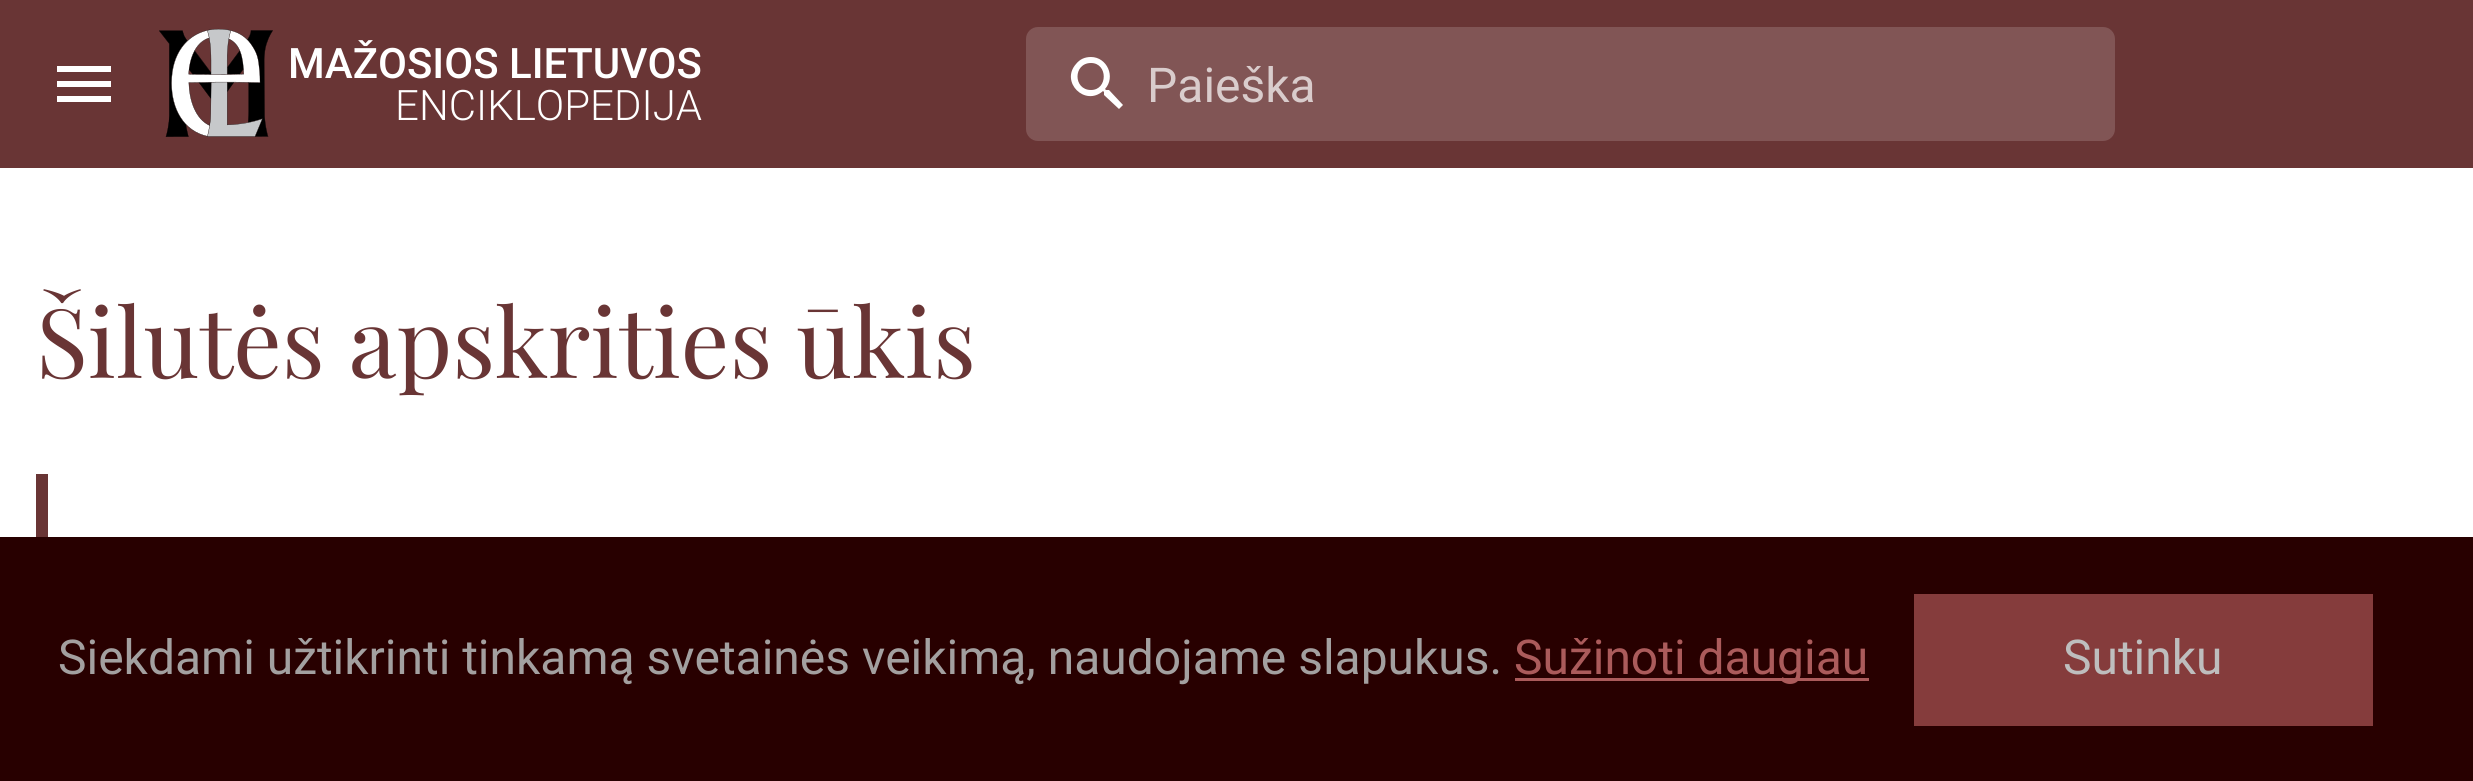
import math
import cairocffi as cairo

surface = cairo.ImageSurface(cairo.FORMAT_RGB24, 2473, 781)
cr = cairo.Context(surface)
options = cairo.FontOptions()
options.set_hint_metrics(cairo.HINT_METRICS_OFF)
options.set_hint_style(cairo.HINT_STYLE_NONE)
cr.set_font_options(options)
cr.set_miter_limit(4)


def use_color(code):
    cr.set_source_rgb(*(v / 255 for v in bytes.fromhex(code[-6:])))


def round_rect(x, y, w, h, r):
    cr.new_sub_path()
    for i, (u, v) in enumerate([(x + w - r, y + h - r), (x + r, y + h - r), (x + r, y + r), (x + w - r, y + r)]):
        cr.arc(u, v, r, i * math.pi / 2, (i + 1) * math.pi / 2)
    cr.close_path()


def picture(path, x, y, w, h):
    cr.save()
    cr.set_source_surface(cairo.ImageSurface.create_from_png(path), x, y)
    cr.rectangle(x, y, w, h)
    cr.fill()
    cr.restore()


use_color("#ffffff")
cr.paint()
use_color("#693535")
cr.rectangle(0, 0, 2473, 168)
cr.fill()
use_color("#ffffff")
cr.new_path()
cr.move_to(57, 66)
cr.line_to(111, 66)
cr.line_to(111, 72)
cr.line_to(57, 72)
cr.close_path()
cr.move_to(57, 81)
cr.line_to(111, 81)
cr.line_to(111, 87)
cr.line_to(57, 87)
cr.close_path()
cr.move_to(57, 96)
cr.line_to(111, 96)
cr.line_to(111, 102)
cr.line_to(57, 102)
cr.close_path()
cr.fill()
picture("img1.png", 159, 28, 114, 109)
cr.select_font_face("Roboto Medium")
cr.set_font_size(42)
cr.move_to(288, 78)
cr.show_text("MAŽOSIOS LIETUVOS")
cr.select_font_face("Roboto Light")
cr.move_to(395, 120)
cr.show_text("ENCIKLOPEDIJA")
use_color("#815555")
round_rect(1026, 27, 1089, 114, 12)
cr.fill()
use_color("#ffffff")
cr.new_path()
cr.move_to(1091, 57)
cr.curve_to(1107, 57, 1116, 77, 1105, 89)
cr.line_to(1106, 90)
cr.line_to(1109, 90)
cr.line_to(1123, 105)
cr.line_to(1119, 109)
cr.line_to(1104, 95)
cr.line_to(1104, 92)
cr.line_to(1103, 91)
cr.curve_to(1085, 107, 1060, 82, 1076, 64)
cr.curve_to(1080, 59, 1085, 57, 1091, 57)
cr.close_path()
cr.move_to(1091, 63)
cr.curve_to(1073, 63, 1073, 90, 1091, 90)
cr.curve_to(1108, 90, 1108, 63, 1091, 63)
cr.close_path()
cr.fill()
cr.select_font_face("Roboto")
cr.set_font_size(48)
use_color("#d9cccc")
cr.move_to(1147, 102)
cr.show_text("Paieška")
cr.select_font_face("Playfair Display")
cr.set_font_size(96)
use_color("#693535")
cr.move_to(36, 378)
cr.show_text("Šilutės apskrities ūkis")
cr.rectangle(36, 474, 12, 63)
cr.fill()
use_color("#280000")
cr.rectangle(0, 537, 2473, 244)
cr.fill()
cr.select_font_face("Roboto")
cr.set_font_size(48)
use_color("#a3a0a0")
cr.move_to(58, 674)
cr.show_text("Siekdami užtikrinti tinkamą svetainės veikimą, naudojame slapukus.")
use_color("#ab5b5b")
cr.rectangle(1515, 678, 354, 3)
cr.fill()
cr.move_to(1514, 674)
cr.show_text("Sužinoti daugiau")
use_color("#853c3c")
cr.rectangle(1914, 594, 459, 132)
cr.fill()
use_color("#bebebe")
cr.move_to(2063, 674)
cr.show_text("Sutinku")
surface.write_to_png("result.png")
